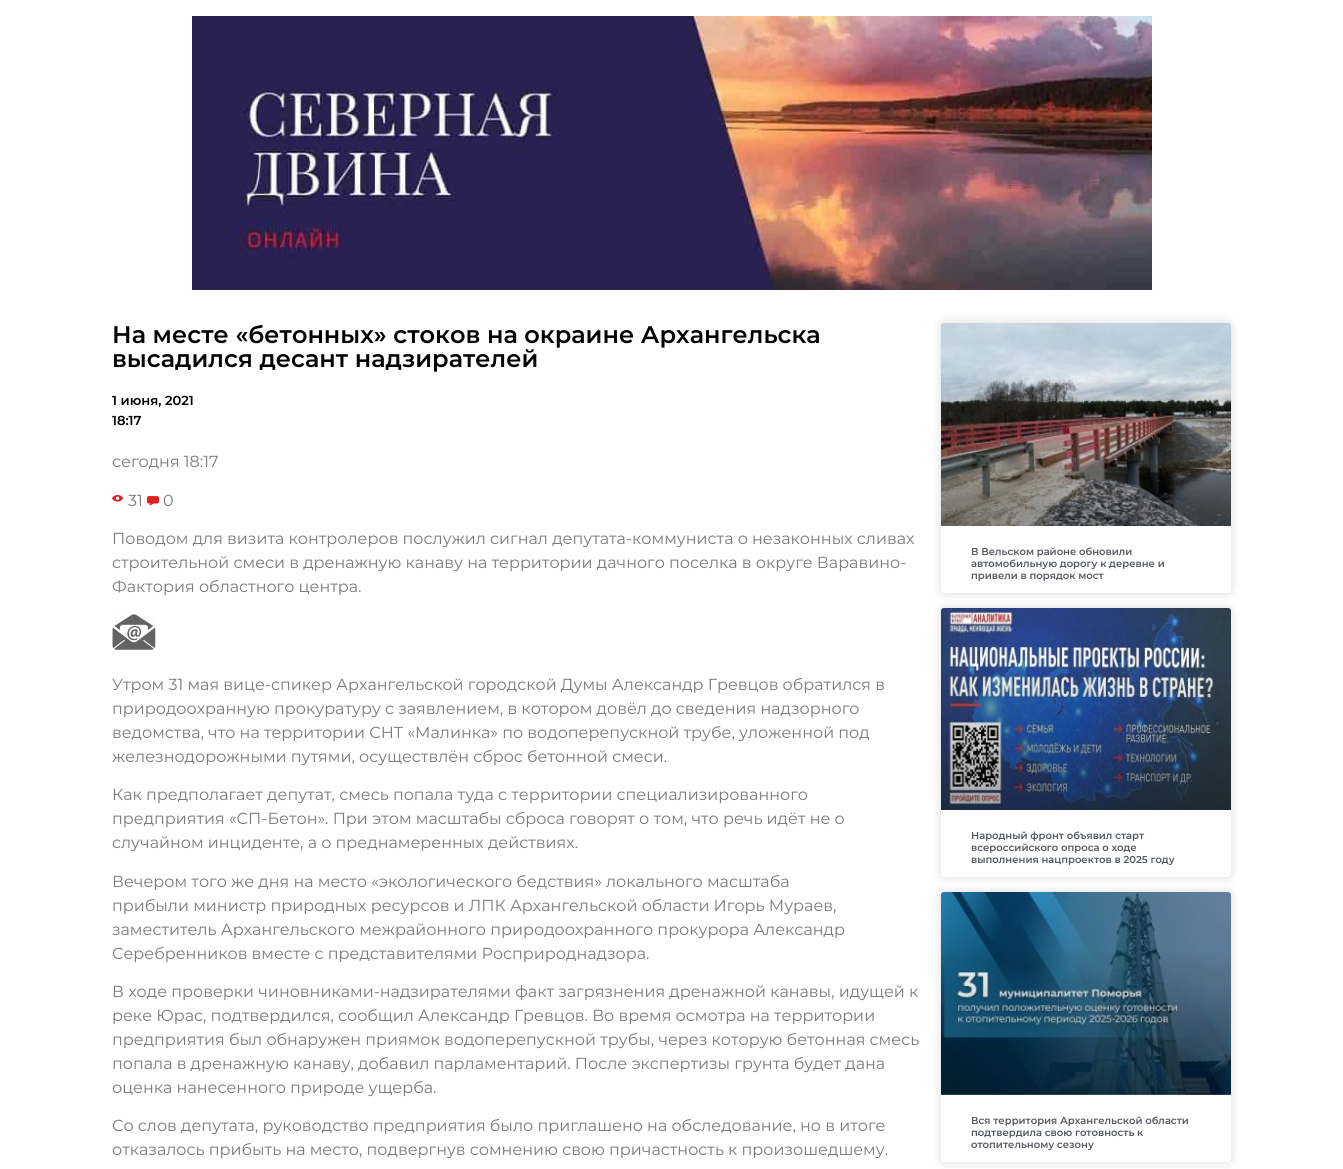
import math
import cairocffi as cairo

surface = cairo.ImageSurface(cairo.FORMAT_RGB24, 1343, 1169)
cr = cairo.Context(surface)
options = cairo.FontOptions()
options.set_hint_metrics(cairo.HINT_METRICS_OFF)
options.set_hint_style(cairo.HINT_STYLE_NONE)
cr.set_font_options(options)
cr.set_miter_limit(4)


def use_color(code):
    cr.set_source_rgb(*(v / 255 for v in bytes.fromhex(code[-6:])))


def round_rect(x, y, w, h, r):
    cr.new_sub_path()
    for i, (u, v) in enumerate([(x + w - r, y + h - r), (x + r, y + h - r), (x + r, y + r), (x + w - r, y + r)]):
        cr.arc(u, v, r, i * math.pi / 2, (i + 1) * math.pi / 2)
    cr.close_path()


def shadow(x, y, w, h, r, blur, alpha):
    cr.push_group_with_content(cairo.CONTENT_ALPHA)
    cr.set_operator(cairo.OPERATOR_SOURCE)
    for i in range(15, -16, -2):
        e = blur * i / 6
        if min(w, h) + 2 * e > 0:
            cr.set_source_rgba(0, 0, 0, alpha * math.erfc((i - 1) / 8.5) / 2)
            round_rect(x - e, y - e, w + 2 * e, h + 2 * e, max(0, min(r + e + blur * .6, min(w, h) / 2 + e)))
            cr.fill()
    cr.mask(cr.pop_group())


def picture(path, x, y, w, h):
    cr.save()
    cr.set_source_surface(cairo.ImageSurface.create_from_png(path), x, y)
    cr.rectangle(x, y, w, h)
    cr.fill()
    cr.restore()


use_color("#ffffff")
cr.paint()
picture("img1.png", 192, 16, 960, 274)
cr.select_font_face("Montserrat SemiBold")
cr.set_font_size(24)
use_color("#000000")
cr.move_to(112, 343)
cr.show_text("На месте «бетонных» стоков на окраине Архангельска")
cr.move_to(112, 367)
cr.show_text("высадился десант надзирателей")
cr.set_font_size(13)
cr.move_to(112, 405)
cr.show_text("1 июня, 2021")
cr.move_to(112, 425)
cr.show_text("18:17")
cr.select_font_face("Montserrat")
cr.set_font_size(16)
use_color("#7a7a7a")
cr.move_to(112, 467)
cr.show_text("сегодня 18:17")
picture("img2.png", 112, 495, 12, 7)
cr.move_to(128, 506)
cr.show_text("31")
picture("img3.png", 147, 496, 12, 10)
cr.move_to(163, 506)
cr.show_text("0")
cr.move_to(112, 544)
cr.show_text("Поводом для визита контролеров послужил сигнал депутата-коммуниста о незаконных сливах")
cr.move_to(112, 568)
cr.show_text("строительной смеси в дренажную канаву на территории дачного поселка в округе Варавино-")
cr.move_to(112, 592)
cr.show_text("Фактория областного центра.")
picture("img4.png", 112, 614, 44, 36)
cr.move_to(112, 690)
cr.show_text("Утром 31 мая вице-спикер Архангельской городской Думы Александр Гревцов обратился в")
cr.move_to(112, 714)
cr.show_text("природоохранную прокуратуру с заявлением, в котором довёл до сведения надзорного")
cr.move_to(112, 738)
cr.show_text("ведомства, что на территории СНТ «Малинка» по водоперепускной трубе, уложенной под")
cr.move_to(112, 762)
cr.show_text("железнодорожными путями, осуществлён сброс бетонной смеси.")
cr.move_to(112, 800)
cr.show_text("Как предполагает депутат, смесь попала туда с территории специализированного")
cr.move_to(112, 824)
cr.show_text("предприятия «СП-Бетон». При этом масштабы сброса говорят о том, что речь идёт не о")
cr.move_to(112, 848)
cr.show_text("случайном инциденте, а о преднамеренных действиях.")
cr.move_to(112, 887)
cr.show_text("Вечером того же дня на место «экологического бедствия» локального масштаба")
cr.move_to(112, 911)
cr.show_text("прибыли министр природных ресурсов и ЛПК Архангельской области Игорь Мураев,")
cr.move_to(112, 935)
cr.show_text("заместитель Архангельского межрайонного природоохранного прокурора Александр")
cr.move_to(112, 959)
cr.show_text("Серебренников вместе с представителями Росприроднадзора.")
cr.move_to(112, 997)
cr.show_text("В ходе проверки чиновниками-надзирателями факт загрязнения дренажной канавы, идущей к")
cr.move_to(112, 1021)
cr.show_text("реке Юрас, подтвердился, сообщил Александр Гревцов. Во время осмотра на территории")
cr.move_to(112, 1045)
cr.show_text("предприятия был обнаружен приямок водоперепускной трубы, через которую бетонная смесь")
cr.move_to(112, 1069)
cr.show_text("попала в дренажную канаву, добавил парламентарий. После экспертизы грунта будет дана")
cr.move_to(112, 1093)
cr.show_text("оценка нанесенного природе ущерба.")
cr.move_to(112, 1131)
cr.show_text("Со слов депутата, руководство предприятия было приглашено на обследование, но в итоге")
cr.move_to(112, 1155)
cr.show_text("отказалось прибыть на место, подвергнув сомнению свою причастность к произошедшему.")
use_color("#000000")
shadow(941, 323, 290, 270, 3, 5, 0.15)
use_color("#ffffff")
round_rect(941, 323, 290, 270, 3)
cr.fill()
picture("img5.png", 941, 323, 290, 203)
gradient = cairo.LinearGradient(1086, 526, 1086, 323)
gradient.add_color_stop_rgba(0, 0, 0, 0, 0.35)
gradient.add_color_stop_rgba(0.75, 0, 0, 0, 0)
cr.set_source(gradient)
cr.rectangle(941, 383, 290, 143)
cr.fill()
cr.select_font_face("Montserrat SemiBold")
cr.set_font_size(10)
use_color("#54595f")
cr.move_to(971, 555)
cr.show_text("В Вельском районе обновили")
cr.move_to(971, 567)
cr.show_text("автомобильную дорогу к деревне и")
cr.move_to(971, 579)
cr.show_text("привели в порядок мост")
use_color("#000000")
shadow(941, 608, 290, 269, 3, 5, 0.15)
use_color("#ffffff")
round_rect(941, 608, 290, 269, 3)
cr.fill()
picture("img6.png", 941, 608, 290, 202)
gradient = cairo.LinearGradient(1086, 810, 1086, 608)
gradient.add_color_stop_rgba(0, 0, 0, 0, 0.35)
gradient.add_color_stop_rgba(0.75, 0, 0, 0, 0)
cr.set_source(gradient)
cr.rectangle(941, 668, 290, 142)
cr.fill()
use_color("#54595f")
cr.move_to(971, 839)
cr.show_text("Народный фронт объявил старт")
cr.move_to(971, 851)
cr.show_text("всероссийского опроса о ходе")
cr.move_to(971, 863)
cr.show_text("выполнения нацпроектов в 2025 году")
use_color("#000000")
shadow(941, 892, 290, 270, 3, 5, 0.15)
use_color("#ffffff")
round_rect(941, 892, 290, 270, 3)
cr.fill()
picture("img7.png", 941, 892, 290, 203)
gradient = cairo.LinearGradient(1086, 1095, 1086, 892)
gradient.add_color_stop_rgba(0, 0, 0, 0, 0.35)
gradient.add_color_stop_rgba(0.75, 0, 0, 0, 0)
cr.set_source(gradient)
cr.rectangle(941, 952, 290, 143)
cr.fill()
use_color("#54595f")
cr.move_to(971, 1124)
cr.show_text("Вся территория Архангельской области")
cr.move_to(971, 1136)
cr.show_text("подтвердила свою готовность к")
cr.move_to(971, 1148)
cr.show_text("отопительному сезону")
surface.write_to_png("result.png")
